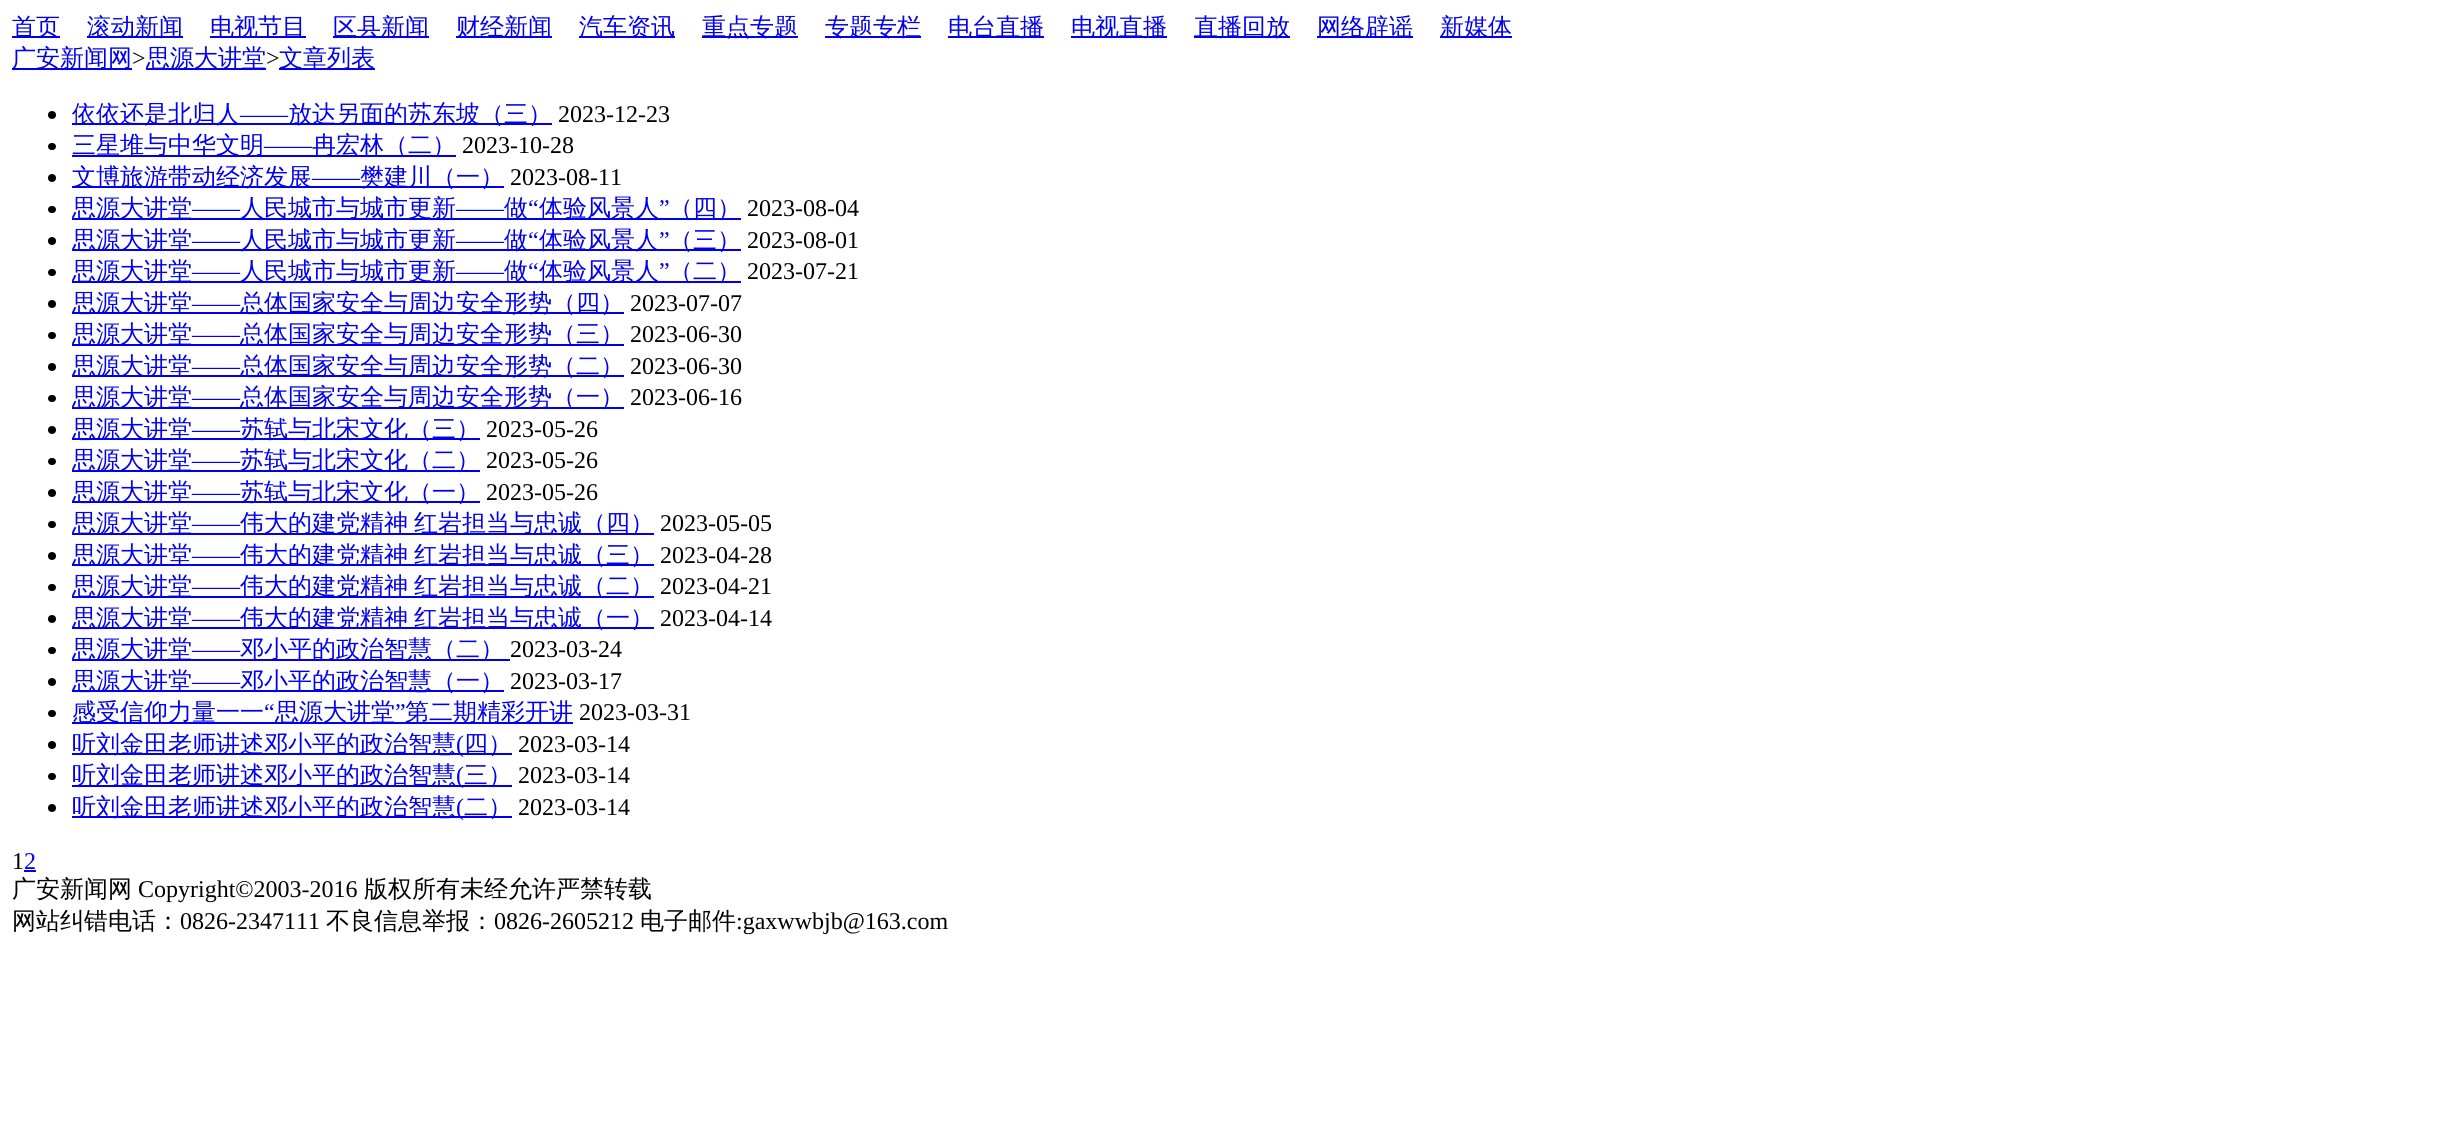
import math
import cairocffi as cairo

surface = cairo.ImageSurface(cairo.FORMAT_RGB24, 2442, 1133)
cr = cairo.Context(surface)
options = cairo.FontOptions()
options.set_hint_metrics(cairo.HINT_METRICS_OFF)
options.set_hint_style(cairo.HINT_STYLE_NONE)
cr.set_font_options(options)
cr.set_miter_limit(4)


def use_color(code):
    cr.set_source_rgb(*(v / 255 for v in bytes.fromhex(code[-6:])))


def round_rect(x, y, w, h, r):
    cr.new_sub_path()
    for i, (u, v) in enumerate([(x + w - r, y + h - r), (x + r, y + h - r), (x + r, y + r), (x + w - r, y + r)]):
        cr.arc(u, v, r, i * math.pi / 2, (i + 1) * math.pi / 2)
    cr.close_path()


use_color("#ffffff")
cr.paint()
use_color("#0000ee")
cr.rectangle(12, 36, 48, 2)
cr.fill()
cr.select_font_face("WenQuanYi Zen Hei Medium")
cr.set_font_size(24)
cr.move_to(12, 35)
cr.show_text("首页")
cr.rectangle(87, 36, 96, 2)
cr.fill()
cr.move_to(87, 35)
cr.show_text("滚动新闻")
cr.rectangle(210, 36, 96, 2)
cr.fill()
cr.move_to(210, 35)
cr.show_text("电视节目")
cr.rectangle(333, 36, 96, 2)
cr.fill()
cr.move_to(333, 35)
cr.show_text("区县新闻")
cr.rectangle(456, 36, 96, 2)
cr.fill()
cr.move_to(456, 35)
cr.show_text("财经新闻")
cr.rectangle(579, 36, 96, 2)
cr.fill()
cr.move_to(579, 35)
cr.show_text("汽车资讯")
cr.rectangle(702, 36, 96, 2)
cr.fill()
cr.move_to(702, 35)
cr.show_text("重点专题")
cr.rectangle(825, 36, 96, 2)
cr.fill()
cr.move_to(825, 35)
cr.show_text("专题专栏")
cr.rectangle(948, 36, 96, 2)
cr.fill()
cr.move_to(948, 35)
cr.show_text("电台直播")
cr.rectangle(1071, 36, 96, 2)
cr.fill()
cr.move_to(1071, 35)
cr.show_text("电视直播")
cr.rectangle(1194, 36, 96, 2)
cr.fill()
cr.move_to(1194, 35)
cr.show_text("直播回放")
cr.rectangle(1317, 36, 96, 2)
cr.fill()
cr.move_to(1317, 35)
cr.show_text("网络辟谣")
cr.rectangle(1440, 36, 72, 2)
cr.fill()
cr.move_to(1440, 35)
cr.show_text("新媒体")
cr.rectangle(12, 68, 120, 2)
cr.fill()
cr.move_to(12, 66)
cr.show_text("广安新闻网")
cr.select_font_face("Liberation Serif")
use_color("#000000")
cr.move_to(132, 66)
cr.show_text(">")
use_color("#0000ee")
cr.rectangle(146, 68, 120, 2)
cr.fill()
cr.select_font_face("WenQuanYi Zen Hei Medium")
cr.move_to(146, 66)
cr.show_text("思源大讲堂")
cr.select_font_face("Liberation Serif")
use_color("#000000")
cr.move_to(266, 66)
cr.show_text(">")
use_color("#0000ee")
cr.rectangle(279, 68, 96, 2)
cr.fill()
cr.select_font_face("WenQuanYi Zen Hei Medium")
cr.move_to(279, 66)
cr.show_text("文章列表")
use_color("#000000")
cr.new_path()
cr.arc(52, 115, 4, 0, 2 * math.pi)
cr.fill()
use_color("#0000ee")
cr.rectangle(72, 123, 480, 2)
cr.fill()
cr.move_to(72, 122)
cr.show_text("依依还是北归人")
cr.select_font_face("Liberation Serif")
cr.move_to(240, 122)
cr.show_text("——")
cr.select_font_face("WenQuanYi Zen Hei Medium")
cr.move_to(288, 122)
cr.show_text("放达另面的苏东坡（三）")
cr.select_font_face("Liberation Serif")
use_color("#000000")
cr.move_to(558, 122)
cr.show_text("2023-12-23")
round_rect(48, 143, 8, 7, 3.5)
cr.fill()
use_color("#0000ee")
cr.rectangle(72, 155, 384, 2)
cr.fill()
cr.select_font_face("WenQuanYi Zen Hei Medium")
cr.move_to(72, 153)
cr.show_text("三星堆与中华文明")
cr.select_font_face("Liberation Serif")
cr.move_to(264, 153)
cr.show_text("——")
cr.select_font_face("WenQuanYi Zen Hei Medium")
cr.move_to(312, 153)
cr.show_text("冉宏林（二）")
cr.select_font_face("Liberation Serif")
use_color("#000000")
cr.move_to(462, 153)
cr.show_text("2023-10-28")
cr.new_path()
cr.arc(52, 178, 4, 0, 2 * math.pi)
cr.fill()
use_color("#0000ee")
cr.rectangle(72, 186, 432, 2)
cr.fill()
cr.select_font_face("WenQuanYi Zen Hei Medium")
cr.move_to(72, 185)
cr.show_text("文博旅游带动经济发展")
cr.select_font_face("Liberation Serif")
cr.move_to(312, 185)
cr.show_text("——")
cr.select_font_face("WenQuanYi Zen Hei Medium")
cr.move_to(360, 185)
cr.show_text("樊建川（一）")
cr.select_font_face("Liberation Serif")
use_color("#000000")
cr.move_to(510, 185)
cr.show_text("2023-08-11")
round_rect(48, 206, 8, 7, 3.5)
cr.fill()
use_color("#0000ee")
cr.rectangle(72, 218, 669, 2)
cr.fill()
cr.select_font_face("WenQuanYi Zen Hei Medium")
cr.move_to(72, 216)
cr.show_text("思源大讲堂")
cr.select_font_face("Liberation Serif")
cr.move_to(192, 216)
cr.show_text("——")
cr.select_font_face("WenQuanYi Zen Hei Medium")
cr.move_to(240, 216)
cr.show_text("人民城市与城市更新")
cr.select_font_face("Liberation Serif")
cr.move_to(456, 216)
cr.show_text("——")
cr.select_font_face("WenQuanYi Zen Hei Medium")
cr.move_to(504, 216)
cr.show_text("做")
cr.select_font_face("Liberation Serif")
cr.move_to(528, 216)
cr.show_text("“")
cr.select_font_face("WenQuanYi Zen Hei Medium")
cr.move_to(539, 216)
cr.show_text("体验风景人")
cr.select_font_face("Liberation Serif")
cr.move_to(659, 216)
cr.show_text("”")
cr.select_font_face("WenQuanYi Zen Hei Medium")
cr.move_to(669, 216)
cr.show_text("（四）")
cr.select_font_face("Liberation Serif")
use_color("#000000")
cr.move_to(747, 216)
cr.show_text("2023-08-04")
cr.new_path()
cr.arc(52, 241, 4, 0, 2 * math.pi)
cr.fill()
use_color("#0000ee")
cr.rectangle(72, 249, 669, 2)
cr.fill()
cr.select_font_face("WenQuanYi Zen Hei Medium")
cr.move_to(72, 248)
cr.show_text("思源大讲堂")
cr.select_font_face("Liberation Serif")
cr.move_to(192, 248)
cr.show_text("——")
cr.select_font_face("WenQuanYi Zen Hei Medium")
cr.move_to(240, 248)
cr.show_text("人民城市与城市更新")
cr.select_font_face("Liberation Serif")
cr.move_to(456, 248)
cr.show_text("——")
cr.select_font_face("WenQuanYi Zen Hei Medium")
cr.move_to(504, 248)
cr.show_text("做")
cr.select_font_face("Liberation Serif")
cr.move_to(528, 248)
cr.show_text("“")
cr.select_font_face("WenQuanYi Zen Hei Medium")
cr.move_to(539, 248)
cr.show_text("体验风景人")
cr.select_font_face("Liberation Serif")
cr.move_to(659, 248)
cr.show_text("”")
cr.select_font_face("WenQuanYi Zen Hei Medium")
cr.move_to(669, 248)
cr.show_text("（三）")
cr.select_font_face("Liberation Serif")
use_color("#000000")
cr.move_to(747, 248)
cr.show_text("2023-08-01")
round_rect(48, 269, 8, 7, 3.5)
cr.fill()
use_color("#0000ee")
cr.rectangle(72, 281, 669, 2)
cr.fill()
cr.select_font_face("WenQuanYi Zen Hei Medium")
cr.move_to(72, 279)
cr.show_text("思源大讲堂")
cr.select_font_face("Liberation Serif")
cr.move_to(192, 279)
cr.show_text("——")
cr.select_font_face("WenQuanYi Zen Hei Medium")
cr.move_to(240, 279)
cr.show_text("人民城市与城市更新")
cr.select_font_face("Liberation Serif")
cr.move_to(456, 279)
cr.show_text("——")
cr.select_font_face("WenQuanYi Zen Hei Medium")
cr.move_to(504, 279)
cr.show_text("做")
cr.select_font_face("Liberation Serif")
cr.move_to(528, 279)
cr.show_text("“")
cr.select_font_face("WenQuanYi Zen Hei Medium")
cr.move_to(539, 279)
cr.show_text("体验风景人")
cr.select_font_face("Liberation Serif")
cr.move_to(659, 279)
cr.show_text("”")
cr.select_font_face("WenQuanYi Zen Hei Medium")
cr.move_to(669, 279)
cr.show_text("（二）")
cr.select_font_face("Liberation Serif")
use_color("#000000")
cr.move_to(747, 279)
cr.show_text("2023-07-21")
cr.new_path()
cr.arc(52, 304, 4, 0, 2 * math.pi)
cr.fill()
use_color("#0000ee")
cr.rectangle(72, 312, 552, 2)
cr.fill()
cr.select_font_face("WenQuanYi Zen Hei Medium")
cr.move_to(72, 311)
cr.show_text("思源大讲堂")
cr.select_font_face("Liberation Serif")
cr.move_to(192, 311)
cr.show_text("——")
cr.select_font_face("WenQuanYi Zen Hei Medium")
cr.move_to(240, 311)
cr.show_text("总体国家安全与周边安全形势（四）")
cr.select_font_face("Liberation Serif")
use_color("#000000")
cr.move_to(630, 311)
cr.show_text("2023-07-07")
round_rect(48, 332, 8, 7, 3.5)
cr.fill()
use_color("#0000ee")
cr.rectangle(72, 344, 552, 2)
cr.fill()
cr.select_font_face("WenQuanYi Zen Hei Medium")
cr.move_to(72, 342)
cr.show_text("思源大讲堂")
cr.select_font_face("Liberation Serif")
cr.move_to(192, 342)
cr.show_text("——")
cr.select_font_face("WenQuanYi Zen Hei Medium")
cr.move_to(240, 342)
cr.show_text("总体国家安全与周边安全形势（三）")
cr.select_font_face("Liberation Serif")
use_color("#000000")
cr.move_to(630, 342)
cr.show_text("2023-06-30")
cr.new_path()
cr.arc(52, 367, 4, 0, 2 * math.pi)
cr.fill()
use_color("#0000ee")
cr.rectangle(72, 375, 552, 2)
cr.fill()
cr.select_font_face("WenQuanYi Zen Hei Medium")
cr.move_to(72, 374)
cr.show_text("思源大讲堂")
cr.select_font_face("Liberation Serif")
cr.move_to(192, 374)
cr.show_text("——")
cr.select_font_face("WenQuanYi Zen Hei Medium")
cr.move_to(240, 374)
cr.show_text("总体国家安全与周边安全形势（二）")
cr.select_font_face("Liberation Serif")
use_color("#000000")
cr.move_to(630, 374)
cr.show_text("2023-06-30")
round_rect(48, 395, 8, 7, 3.5)
cr.fill()
use_color("#0000ee")
cr.rectangle(72, 407, 552, 2)
cr.fill()
cr.select_font_face("WenQuanYi Zen Hei Medium")
cr.move_to(72, 405)
cr.show_text("思源大讲堂")
cr.select_font_face("Liberation Serif")
cr.move_to(192, 405)
cr.show_text("——")
cr.select_font_face("WenQuanYi Zen Hei Medium")
cr.move_to(240, 405)
cr.show_text("总体国家安全与周边安全形势（一）")
cr.select_font_face("Liberation Serif")
use_color("#000000")
cr.move_to(630, 405)
cr.show_text("2023-06-16")
cr.new_path()
cr.arc(52, 430, 4, 0, 2 * math.pi)
cr.fill()
use_color("#0000ee")
cr.rectangle(72, 438, 408, 2)
cr.fill()
cr.select_font_face("WenQuanYi Zen Hei Medium")
cr.move_to(72, 437)
cr.show_text("思源大讲堂")
cr.select_font_face("Liberation Serif")
cr.move_to(192, 437)
cr.show_text("——")
cr.select_font_face("WenQuanYi Zen Hei Medium")
cr.move_to(240, 437)
cr.show_text("苏轼与北宋文化（三）")
cr.select_font_face("Liberation Serif")
use_color("#000000")
cr.move_to(486, 437)
cr.show_text("2023-05-26")
round_rect(48, 458, 8, 7, 3.5)
cr.fill()
use_color("#0000ee")
cr.rectangle(72, 470, 408, 2)
cr.fill()
cr.select_font_face("WenQuanYi Zen Hei Medium")
cr.move_to(72, 468)
cr.show_text("思源大讲堂")
cr.select_font_face("Liberation Serif")
cr.move_to(192, 468)
cr.show_text("——")
cr.select_font_face("WenQuanYi Zen Hei Medium")
cr.move_to(240, 468)
cr.show_text("苏轼与北宋文化（二）")
cr.select_font_face("Liberation Serif")
use_color("#000000")
cr.move_to(486, 468)
cr.show_text("2023-05-26")
cr.new_path()
cr.arc(52, 493, 4, 0, 2 * math.pi)
cr.fill()
use_color("#0000ee")
cr.rectangle(72, 501, 408, 2)
cr.fill()
cr.select_font_face("WenQuanYi Zen Hei Medium")
cr.move_to(72, 500)
cr.show_text("思源大讲堂")
cr.select_font_face("Liberation Serif")
cr.move_to(192, 500)
cr.show_text("——")
cr.select_font_face("WenQuanYi Zen Hei Medium")
cr.move_to(240, 500)
cr.show_text("苏轼与北宋文化（一）")
cr.select_font_face("Liberation Serif")
use_color("#000000")
cr.move_to(486, 500)
cr.show_text("2023-05-26")
round_rect(48, 521, 8, 7, 3.5)
cr.fill()
use_color("#0000ee")
cr.rectangle(72, 533, 582, 2)
cr.fill()
cr.select_font_face("WenQuanYi Zen Hei Medium")
cr.move_to(72, 531)
cr.show_text("思源大讲堂")
cr.select_font_face("Liberation Serif")
cr.move_to(192, 531)
cr.show_text("——")
cr.select_font_face("WenQuanYi Zen Hei Medium")
cr.move_to(240, 531)
cr.show_text("伟大的建党精神")
cr.move_to(414, 531)
cr.show_text("红岩担当与忠诚（四）")
cr.select_font_face("Liberation Serif")
use_color("#000000")
cr.move_to(660, 531)
cr.show_text("2023-05-05")
cr.new_path()
cr.arc(52, 556, 4, 0, 2 * math.pi)
cr.fill()
use_color("#0000ee")
cr.rectangle(72, 564, 582, 2)
cr.fill()
cr.select_font_face("WenQuanYi Zen Hei Medium")
cr.move_to(72, 563)
cr.show_text("思源大讲堂")
cr.select_font_face("Liberation Serif")
cr.move_to(192, 563)
cr.show_text("——")
cr.select_font_face("WenQuanYi Zen Hei Medium")
cr.move_to(240, 563)
cr.show_text("伟大的建党精神")
cr.move_to(414, 563)
cr.show_text("红岩担当与忠诚（三）")
cr.select_font_face("Liberation Serif")
use_color("#000000")
cr.move_to(660, 563)
cr.show_text("2023-04-28")
round_rect(48, 584, 8, 7, 3.5)
cr.fill()
use_color("#0000ee")
cr.rectangle(72, 596, 582, 2)
cr.fill()
cr.select_font_face("WenQuanYi Zen Hei Medium")
cr.move_to(72, 594)
cr.show_text("思源大讲堂")
cr.select_font_face("Liberation Serif")
cr.move_to(192, 594)
cr.show_text("——")
cr.select_font_face("WenQuanYi Zen Hei Medium")
cr.move_to(240, 594)
cr.show_text("伟大的建党精神")
cr.move_to(414, 594)
cr.show_text("红岩担当与忠诚（二）")
cr.select_font_face("Liberation Serif")
use_color("#000000")
cr.move_to(660, 594)
cr.show_text("2023-04-21")
cr.new_path()
cr.arc(52, 619, 4, 0, 2 * math.pi)
cr.fill()
use_color("#0000ee")
cr.rectangle(72, 627, 582, 2)
cr.fill()
cr.select_font_face("WenQuanYi Zen Hei Medium")
cr.move_to(72, 626)
cr.show_text("思源大讲堂")
cr.select_font_face("Liberation Serif")
cr.move_to(192, 626)
cr.show_text("——")
cr.select_font_face("WenQuanYi Zen Hei Medium")
cr.move_to(240, 626)
cr.show_text("伟大的建党精神")
cr.move_to(414, 626)
cr.show_text("红岩担当与忠诚（一）")
cr.select_font_face("Liberation Serif")
use_color("#000000")
cr.move_to(660, 626)
cr.show_text("2023-04-14")
round_rect(48, 647, 8, 7, 3.5)
cr.fill()
use_color("#0000ee")
cr.rectangle(72, 659, 438, 2)
cr.fill()
cr.select_font_face("WenQuanYi Zen Hei Medium")
cr.move_to(72, 657)
cr.show_text("思源大讲堂")
cr.select_font_face("Liberation Serif")
cr.move_to(192, 657)
cr.show_text("——")
cr.select_font_face("WenQuanYi Zen Hei Medium")
cr.move_to(240, 657)
cr.show_text("邓小平的政治智慧（二）")
cr.select_font_face("Liberation Serif")
use_color("#000000")
cr.move_to(510, 657)
cr.show_text("2023-03-24")
cr.new_path()
cr.arc(52, 682, 4, 0, 2 * math.pi)
cr.fill()
use_color("#0000ee")
cr.rectangle(72, 690, 432, 2)
cr.fill()
cr.select_font_face("WenQuanYi Zen Hei Medium")
cr.move_to(72, 689)
cr.show_text("思源大讲堂")
cr.select_font_face("Liberation Serif")
cr.move_to(192, 689)
cr.show_text("——")
cr.select_font_face("WenQuanYi Zen Hei Medium")
cr.move_to(240, 689)
cr.show_text("邓小平的政治智慧（一）")
cr.select_font_face("Liberation Serif")
use_color("#000000")
cr.move_to(510, 689)
cr.show_text("2023-03-17")
round_rect(48, 710, 8, 7, 3.5)
cr.fill()
use_color("#0000ee")
cr.rectangle(72, 722, 501, 2)
cr.fill()
cr.select_font_face("WenQuanYi Zen Hei Medium")
cr.move_to(72, 720)
cr.show_text("感受信仰力量一一")
cr.select_font_face("Liberation Serif")
cr.move_to(264, 720)
cr.show_text("“")
cr.select_font_face("WenQuanYi Zen Hei Medium")
cr.move_to(275, 720)
cr.show_text("思源大讲堂")
cr.select_font_face("Liberation Serif")
cr.move_to(395, 720)
cr.show_text("”")
cr.select_font_face("WenQuanYi Zen Hei Medium")
cr.move_to(405, 720)
cr.show_text("第二期精彩开讲")
cr.select_font_face("Liberation Serif")
use_color("#000000")
cr.move_to(579, 720)
cr.show_text("2023-03-31")
cr.new_path()
cr.arc(52, 745, 4, 0, 2 * math.pi)
cr.fill()
use_color("#0000ee")
cr.rectangle(72, 753, 440, 2)
cr.fill()
cr.select_font_face("WenQuanYi Zen Hei Medium")
cr.move_to(72, 752)
cr.show_text("听刘金田老师讲述邓小平的政治智慧")
cr.select_font_face("Liberation Serif")
cr.move_to(456, 752)
cr.show_text("(")
cr.select_font_face("WenQuanYi Zen Hei Medium")
cr.move_to(464, 752)
cr.show_text("四）")
cr.select_font_face("Liberation Serif")
use_color("#000000")
cr.move_to(518, 752)
cr.show_text("2023-03-14")
round_rect(48, 773, 8, 7, 3.5)
cr.fill()
use_color("#0000ee")
cr.rectangle(72, 785, 440, 2)
cr.fill()
cr.select_font_face("WenQuanYi Zen Hei Medium")
cr.move_to(72, 783)
cr.show_text("听刘金田老师讲述邓小平的政治智慧")
cr.select_font_face("Liberation Serif")
cr.move_to(456, 783)
cr.show_text("(")
cr.select_font_face("WenQuanYi Zen Hei Medium")
cr.move_to(464, 783)
cr.show_text("三）")
cr.select_font_face("Liberation Serif")
use_color("#000000")
cr.move_to(518, 783)
cr.show_text("2023-03-14")
cr.new_path()
cr.arc(52, 808, 4, 0, 2 * math.pi)
cr.fill()
use_color("#0000ee")
cr.rectangle(72, 816, 440, 2)
cr.fill()
cr.select_font_face("WenQuanYi Zen Hei Medium")
cr.move_to(72, 815)
cr.show_text("听刘金田老师讲述邓小平的政治智慧")
cr.select_font_face("Liberation Serif")
cr.move_to(456, 815)
cr.show_text("(")
cr.select_font_face("WenQuanYi Zen Hei Medium")
cr.move_to(464, 815)
cr.show_text("二）")
cr.select_font_face("Liberation Serif")
use_color("#000000")
cr.move_to(518, 815)
cr.show_text("2023-03-14")
cr.move_to(12, 869)
cr.show_text("1")
use_color("#0000ee")
cr.move_to(24, 869)
cr.show_text("2")
cr.rectangle(24, 870, 12, 2)
cr.fill()
cr.select_font_face("WenQuanYi Zen Hei Medium")
use_color("#000000")
cr.move_to(12, 897)
cr.show_text("广安新闻网")
cr.select_font_face("Liberation Serif")
cr.move_to(138, 897)
cr.show_text("Copyright©2003-2016")
cr.select_font_face("WenQuanYi Zen Hei Medium")
cr.move_to(364, 897)
cr.show_text("版权所有未经允许严禁转载")
cr.move_to(12, 929)
cr.show_text("网站纠错电话：")
cr.select_font_face("Liberation Serif")
cr.move_to(180, 929)
cr.show_text("0826-2347111")
cr.select_font_face("WenQuanYi Zen Hei Medium")
cr.move_to(326, 929)
cr.show_text("不良信息举报：")
cr.select_font_face("Liberation Serif")
cr.move_to(494, 929)
cr.show_text("0826-2605212")
cr.select_font_face("WenQuanYi Zen Hei Medium")
cr.move_to(640, 929)
cr.show_text("电子邮件")
cr.select_font_face("Liberation Serif")
cr.move_to(736, 929)
cr.show_text(":gaxwwbjb@163.com")
surface.write_to_png("result.png")
